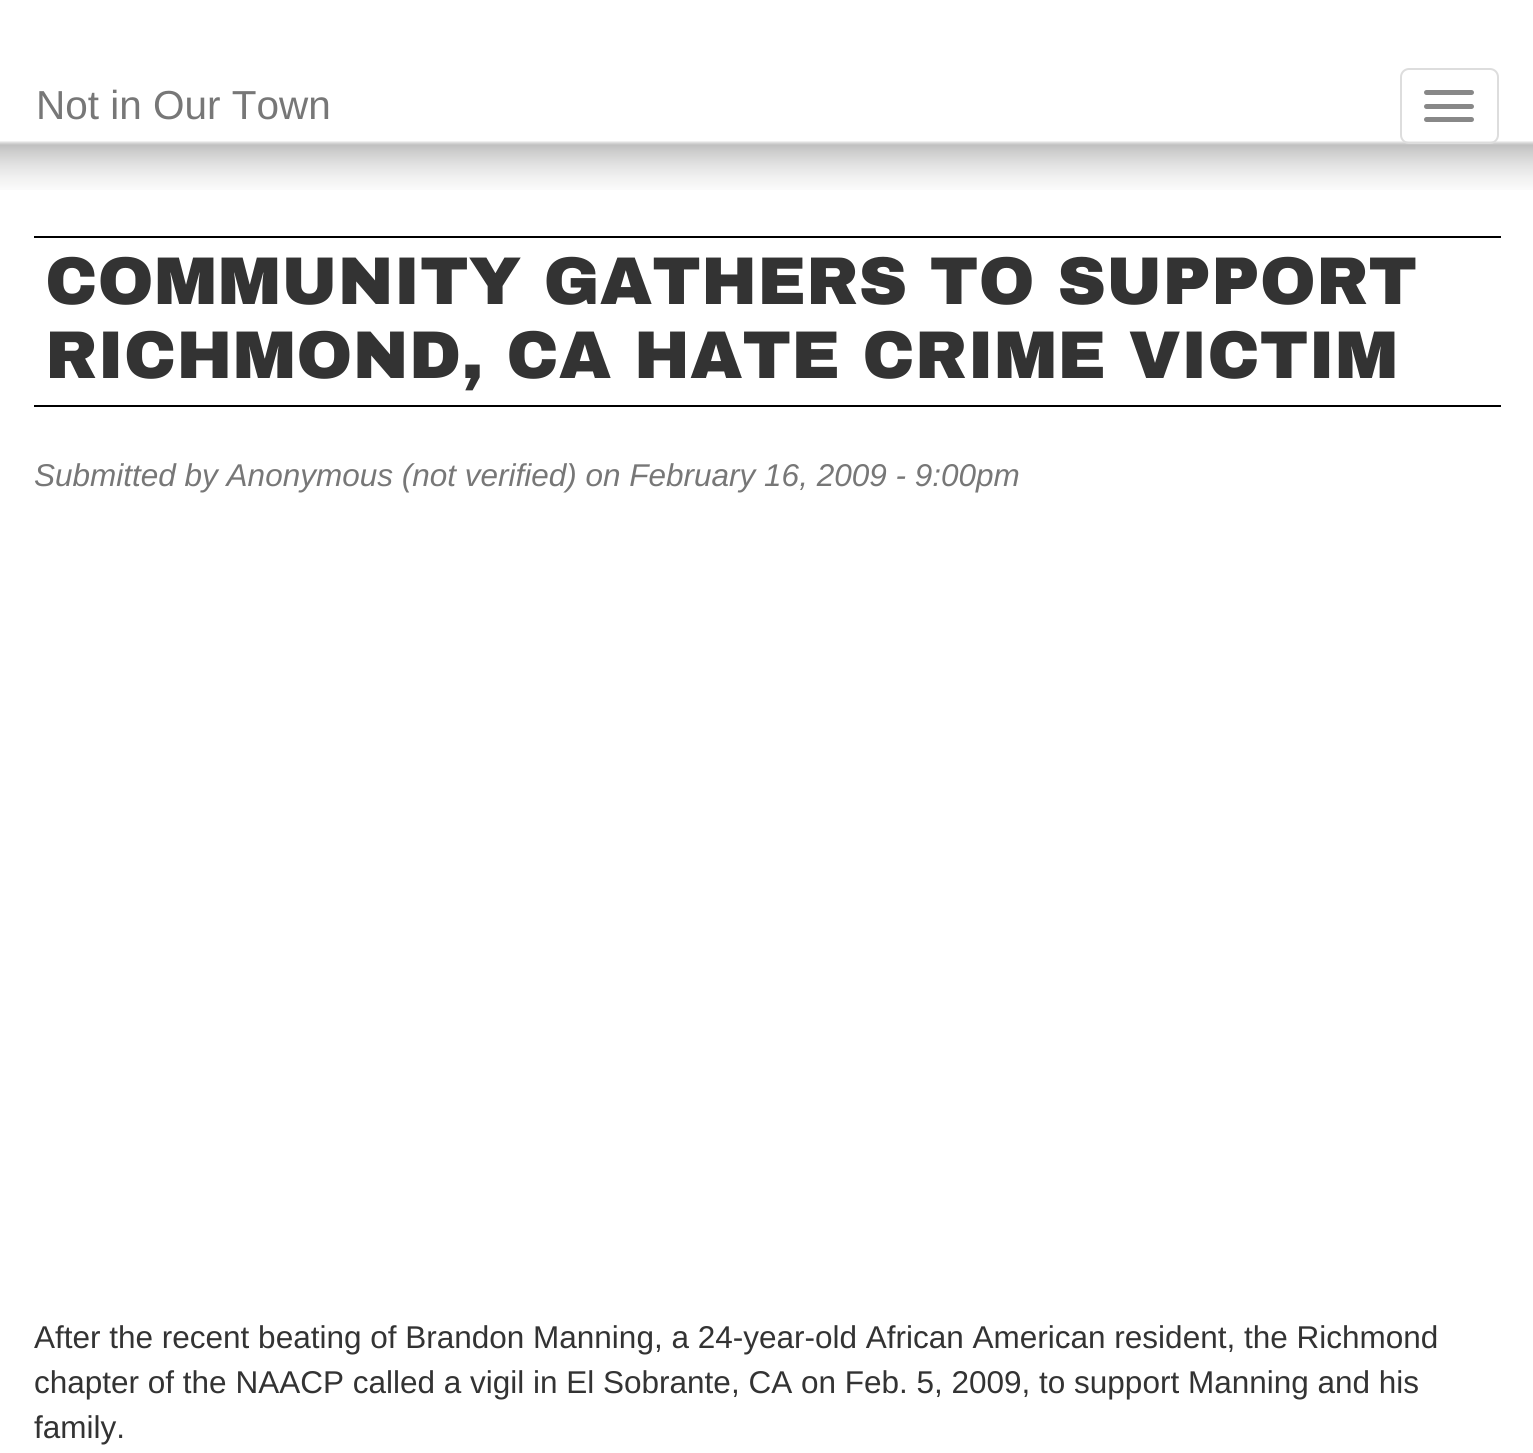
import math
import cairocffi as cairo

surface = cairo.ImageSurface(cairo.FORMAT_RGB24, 1533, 1453)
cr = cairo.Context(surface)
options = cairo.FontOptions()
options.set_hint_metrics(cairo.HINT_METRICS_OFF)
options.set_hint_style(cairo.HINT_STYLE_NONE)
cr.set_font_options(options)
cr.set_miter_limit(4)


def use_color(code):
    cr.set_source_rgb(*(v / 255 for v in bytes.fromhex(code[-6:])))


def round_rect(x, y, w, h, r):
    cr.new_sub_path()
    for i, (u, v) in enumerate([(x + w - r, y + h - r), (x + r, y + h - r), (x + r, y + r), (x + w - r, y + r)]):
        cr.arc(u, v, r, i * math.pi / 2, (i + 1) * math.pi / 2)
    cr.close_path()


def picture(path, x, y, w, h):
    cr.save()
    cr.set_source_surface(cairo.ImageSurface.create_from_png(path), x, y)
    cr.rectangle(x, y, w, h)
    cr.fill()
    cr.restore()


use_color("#ffffff")
cr.paint()
picture("img1.png", 0, 141, 1533, 49)
cr.select_font_face("Liberation Sans")
cr.set_font_size(40.5)
use_color("#777777")
cr.move_to(36, 119)
cr.show_text("Not in Our Town")
round_rect(1401, 69, 97, 74, 8)
use_color("#dddddd")
cr.stroke()
use_color("#888888")
round_rect(1424, 90, 50, 5, 2.5)
cr.fill()
round_rect(1424, 104, 50, 5, 2.5)
cr.fill()
round_rect(1424, 117, 50, 5, 2.5)
cr.fill()
use_color("#000000")
cr.rectangle(34, 236, 1467, 2)
cr.fill()
cr.rectangle(34, 405, 1467, 2)
cr.fill()
cr.select_font_face("Archivo Black Black")
cr.set_font_size(67.5)
use_color("#333333")
cr.move_to(45, 304)
cr.show_text("COMMUNITY GATHERS TO SUPPORT")
cr.move_to(45, 378)
cr.show_text("RICHMOND, CA HATE CRIME VICTIM")
cr.select_font_face("Liberation Sans", cairo.FONT_SLANT_ITALIC)
cr.set_font_size(31.5)
use_color("#777777")
cr.move_to(34, 486)
cr.show_text("Submitted by Anonymous (not verified) on February 16, 2009 - 9:00pm")
cr.select_font_face("Liberation Sans")
use_color("#333333")
cr.move_to(34, 1348)
cr.show_text("After the recent beating of Brandon Manning, a 24-year-old African American resident, the Richmond")
cr.move_to(34, 1393)
cr.show_text("chapter of the NAACP called a vigil in El Sobrante, CA on Feb. 5, 2009, to support Manning and his")
cr.move_to(34, 1438)
cr.show_text("family.")
surface.write_to_png("result.png")
